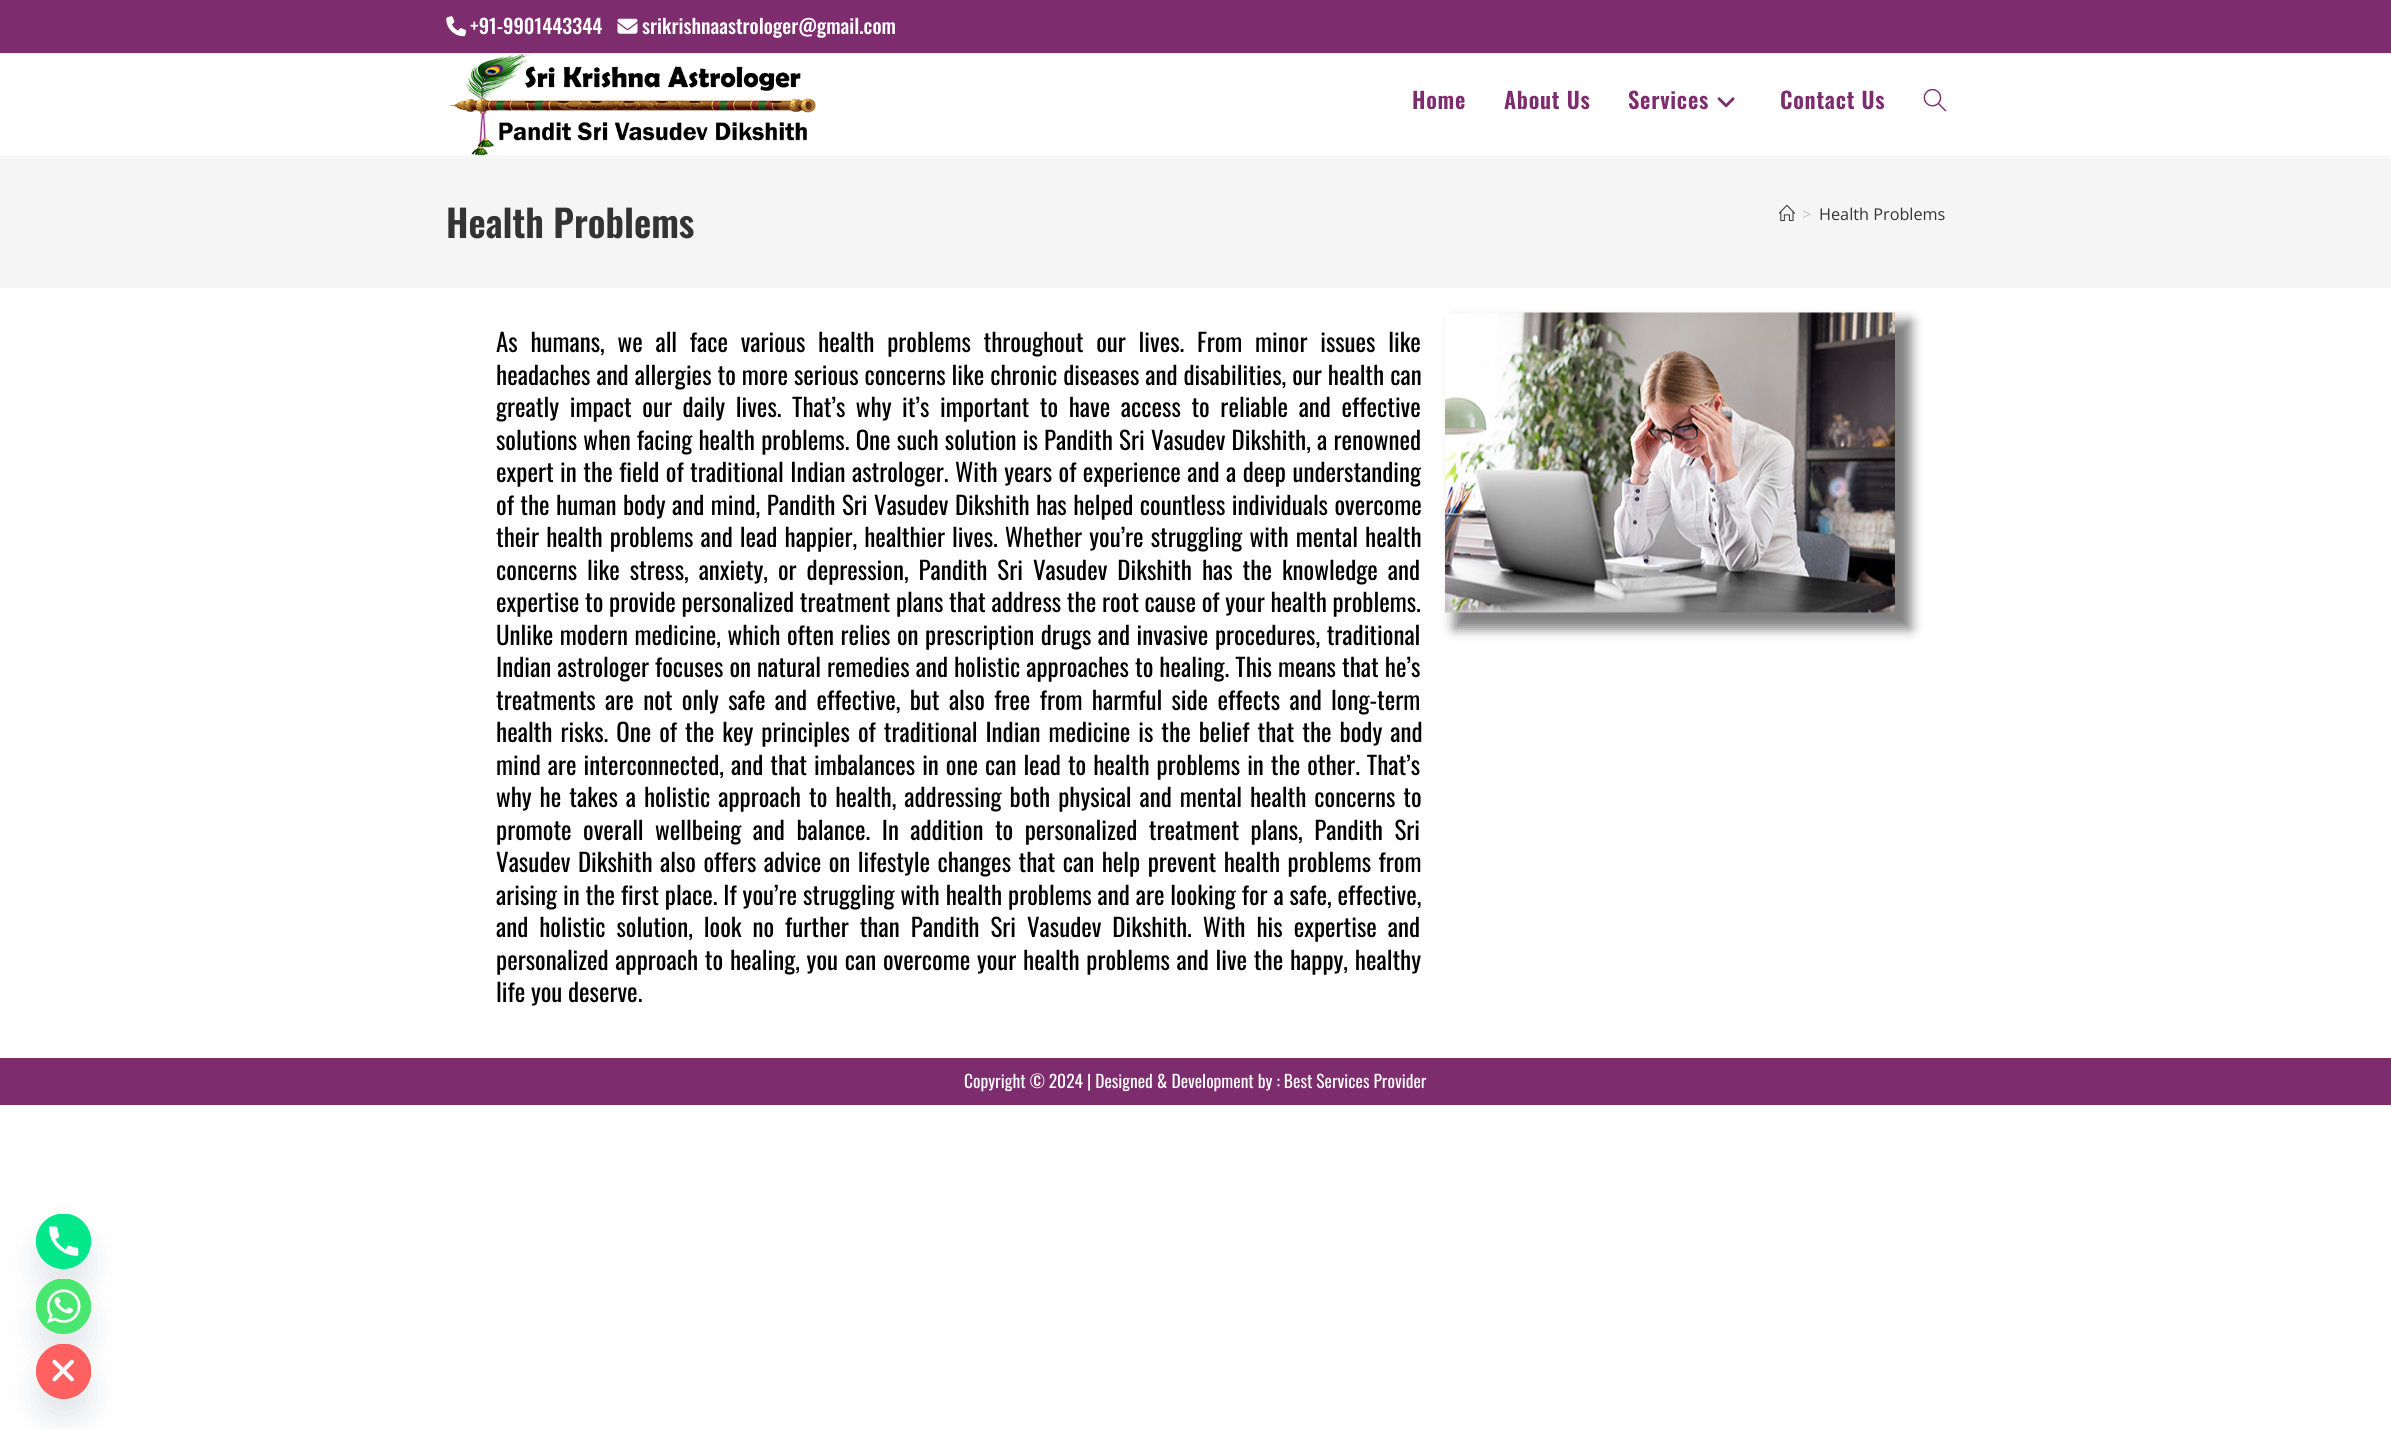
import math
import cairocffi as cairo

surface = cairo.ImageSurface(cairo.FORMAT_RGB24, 2391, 1429)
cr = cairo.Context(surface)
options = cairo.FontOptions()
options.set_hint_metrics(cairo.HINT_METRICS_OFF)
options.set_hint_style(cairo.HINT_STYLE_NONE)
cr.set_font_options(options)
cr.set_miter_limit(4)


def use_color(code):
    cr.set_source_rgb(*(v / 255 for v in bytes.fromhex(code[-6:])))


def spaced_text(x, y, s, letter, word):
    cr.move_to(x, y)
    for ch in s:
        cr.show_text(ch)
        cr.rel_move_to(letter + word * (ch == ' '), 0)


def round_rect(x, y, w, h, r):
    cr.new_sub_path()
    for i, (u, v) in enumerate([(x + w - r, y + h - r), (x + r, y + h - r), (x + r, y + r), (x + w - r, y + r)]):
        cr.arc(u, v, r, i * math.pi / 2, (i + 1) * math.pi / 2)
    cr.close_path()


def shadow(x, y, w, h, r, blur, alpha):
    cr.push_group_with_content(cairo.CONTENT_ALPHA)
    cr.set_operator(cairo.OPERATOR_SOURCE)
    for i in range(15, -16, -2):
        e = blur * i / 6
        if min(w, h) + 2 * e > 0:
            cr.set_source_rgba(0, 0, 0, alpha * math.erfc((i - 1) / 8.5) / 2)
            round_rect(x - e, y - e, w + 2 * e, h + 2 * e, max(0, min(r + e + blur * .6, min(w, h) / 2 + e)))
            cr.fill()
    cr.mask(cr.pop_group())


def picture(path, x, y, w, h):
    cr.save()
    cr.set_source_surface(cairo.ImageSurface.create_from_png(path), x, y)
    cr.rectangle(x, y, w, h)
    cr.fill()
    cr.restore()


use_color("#ffffff")
cr.paint()
use_color("#7d2c6e")
cr.rectangle(0, 0, 2391, 53)
cr.fill()
use_color("#f1f1f1")
cr.rectangle(0, 53, 2391, 1)
cr.fill()
picture("img1.png", 446, 16, 21, 21)
cr.select_font_face("Oswald Medium")
cr.set_font_size(20)
use_color("#ffffff")
cr.move_to(470, 34)
cr.show_text("+91-9901443344")
picture("img2.png", 617, 18, 21, 16)
cr.move_to(642, 34)
cr.show_text("srikrishnaastrologer@gmail.com")
use_color("#f1f1f1")
cr.rectangle(0, 156, 2391, 1)
cr.fill()
picture("img3.png", 449, 54, 367, 102)
cr.select_font_face("Oswald SemiBold")
cr.set_font_size(22.5)
use_color("#7d2c6e")
spaced_text(1412, 109, "Home", 0.75, 0)
spaced_text(1504, 109, "About Us", 0.75, 0)
spaced_text(1628, 109, "Services", 0.75, 0)
picture("img4.png", 1717, 97, 18, 11)
spaced_text(1780, 109, "Contact Us", 0.75, 0)
picture("img5.png", 1923, 88, 24, 24)
use_color("#f5f5f5")
cr.rectangle(0, 158, 2391, 130)
cr.fill()
cr.set_font_size(37.5)
use_color("#333333")
cr.move_to(446, 238)
cr.show_text("Health Problems")
picture("img6.png", 1779, 204, 16, 17)
cr.select_font_face("Open Sans")
cr.set_font_size(16.25)
use_color("#c6c6c6")
cr.move_to(1802, 220)
cr.show_text(">")
use_color("#333333")
cr.move_to(1819, 220)
cr.show_text("Health Problems")
cr.select_font_face("Oswald")
cr.set_font_size(25)
use_color("#000000")
spaced_text(496, 352, "As humans, we all face various health problems throughout our lives. From minor issues like", 0, 7)
spaced_text(496, 385, "headaches and allergies to more serious concerns like chronic diseases and disabilities, our health can", 0, 0.25)
spaced_text(496, 417, "greatly impact our daily lives. That’s why it’s important to have access to reliable and effective", 0, 4.9)
spaced_text(496, 450, "solutions when facing health problems. One such solution is Pandith Sri Vasudev Dikshith, a renowned", 0, 0.5)
spaced_text(496, 482, "expert in the field of traditional Indian astrologer. With years of experience and a deep understanding", 0, 0.75)
spaced_text(496, 515, "of the human body and mind, Pandith Sri Vasudev Dikshith has helped countless individuals overcome", 0, 0.75)
spaced_text(496, 547, "their health problems and lead happier, healthier lives. Whether you’re struggling with mental health", 0, 1.4)
spaced_text(496, 580, "concerns like stress, anxiety, or depression, Pandith Sri Vasudev Dikshith has the knowledge and", 0, 4.25)
cr.move_to(496, 612)
cr.show_text("expertise to provide personalized treatment plans that address the root cause of your health problems.")
spaced_text(496, 645, "Unlike modern medicine, which often relies on prescription drugs and invasive procedures, traditional", 0, 0.8)
spaced_text(496, 677, "Indian astrologer focuses on natural remedies and holistic approaches to healing. This means that he’s", 0, 0.3)
spaced_text(496, 710, "treatments are not only safe and effective, but also free from harmful side effects and long-term", 0, 3.6)
spaced_text(496, 742, "health risks. One of the key principles of traditional Indian medicine is the belief that the body and", 0, 2.25)
spaced_text(496, 775, "mind are interconnected, and that imbalances in one can lead to health problems in the other. That’s", 0, 1.25)
spaced_text(496, 807, "why he takes a holistic approach to health, addressing both physical and mental health concerns to", 0, 2.25)
spaced_text(496, 840, "promote overall wellbeing and balance. In addition to personalized treatment plans, Pandith Sri", 0, 5.75)
spaced_text(496, 872, "Vasudev Dikshith also offers advice on lifestyle changes that can help prevent health problems from", 0, 1.75)
spaced_text(496, 905, "arising in the first place. If you’re struggling with health problems and are looking for a safe, effective,", 0, 0.2)
spaced_text(496, 937, "and holistic solution, look no further than Pandith Sri Vasudev Dikshith. With his expertise and", 0, 5.25)
spaced_text(496, 970, "personalized approach to healing, you can overcome your health problems and live the happy, healthy", 0, 1)
cr.move_to(496, 1002)
cr.show_text("life you deserve.")
use_color("#000000")
shadow(1454, 321, 457, 308, 0, 6, 0.5)
picture("img7.png", 1445, 312, 450, 301)
use_color("#7d2c6e")
cr.rectangle(0, 1058, 2391, 47)
cr.fill()
cr.set_font_size(17.5)
use_color("#ffffff")
cr.move_to(964, 1088)
cr.show_text("Copyright © 2024 | Designed & Development by : Best Services Provider")
use_color("#49687e")
shadow(36, 1234, 55, 55, 27.5, 15, 0.16)
use_color("#03e78b")
cr.arc(63.5, 1241.5, 27.5, 0, 2 * math.pi)
cr.fill()
picture("img8.png", 36, 1214, 55, 55)
use_color("#49687e")
shadow(36, 1299, 55, 55, 27.5, 15, 0.16)
use_color("#49e670")
cr.arc(63.5, 1306.5, 27.5, 0, 2 * math.pi)
cr.fill()
picture("img9.png", 36, 1279, 55, 55)
use_color("#49687e")
shadow(36, 1364, 55, 55, 27.5, 15, 0.16)
use_color("#ff6060")
cr.new_path()
cr.move_to(64, 1399)
cr.curve_to(49, 1399, 36, 1386, 36, 1371)
cr.curve_to(36, 1356, 49, 1344, 64, 1344)
cr.curve_to(79, 1344, 91, 1356, 91, 1371)
cr.curve_to(91, 1386, 79, 1399, 64, 1399)
cr.close_path()
cr.fill()
picture("img10.png", 36, 1344, 55, 55)
surface.write_to_png("result.png")
